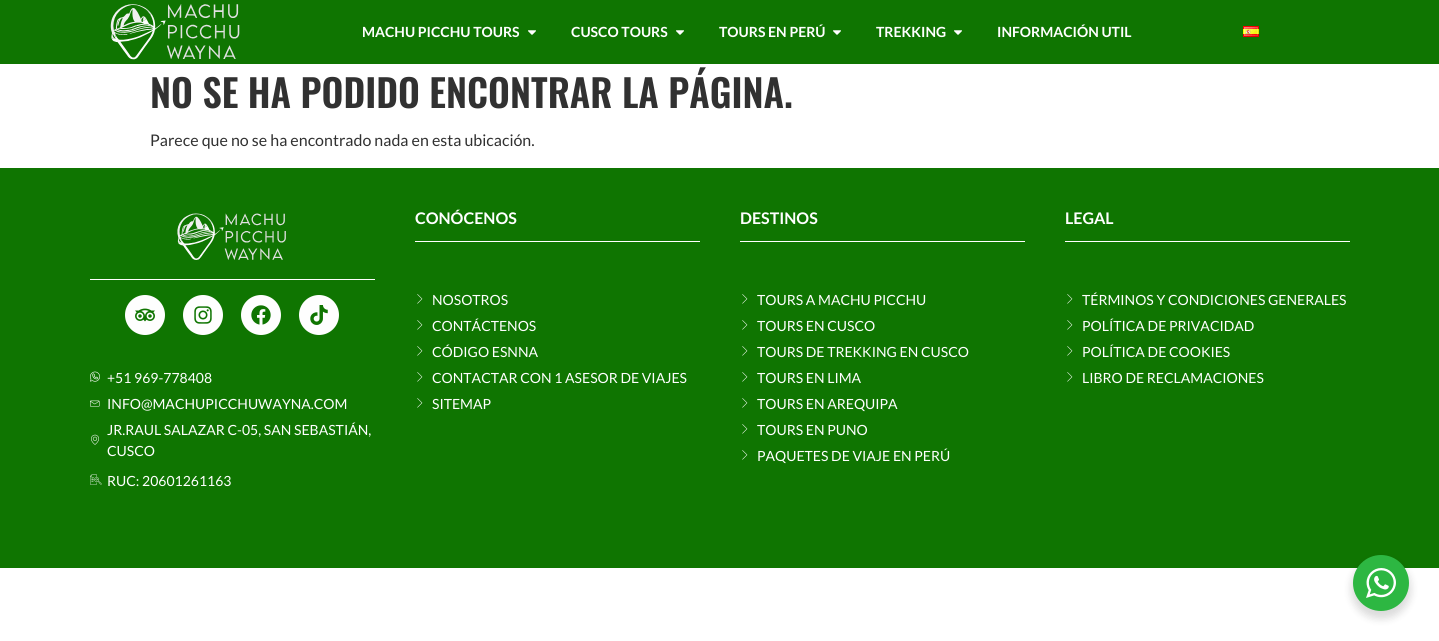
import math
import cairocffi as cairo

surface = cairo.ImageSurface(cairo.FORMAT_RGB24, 1439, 641)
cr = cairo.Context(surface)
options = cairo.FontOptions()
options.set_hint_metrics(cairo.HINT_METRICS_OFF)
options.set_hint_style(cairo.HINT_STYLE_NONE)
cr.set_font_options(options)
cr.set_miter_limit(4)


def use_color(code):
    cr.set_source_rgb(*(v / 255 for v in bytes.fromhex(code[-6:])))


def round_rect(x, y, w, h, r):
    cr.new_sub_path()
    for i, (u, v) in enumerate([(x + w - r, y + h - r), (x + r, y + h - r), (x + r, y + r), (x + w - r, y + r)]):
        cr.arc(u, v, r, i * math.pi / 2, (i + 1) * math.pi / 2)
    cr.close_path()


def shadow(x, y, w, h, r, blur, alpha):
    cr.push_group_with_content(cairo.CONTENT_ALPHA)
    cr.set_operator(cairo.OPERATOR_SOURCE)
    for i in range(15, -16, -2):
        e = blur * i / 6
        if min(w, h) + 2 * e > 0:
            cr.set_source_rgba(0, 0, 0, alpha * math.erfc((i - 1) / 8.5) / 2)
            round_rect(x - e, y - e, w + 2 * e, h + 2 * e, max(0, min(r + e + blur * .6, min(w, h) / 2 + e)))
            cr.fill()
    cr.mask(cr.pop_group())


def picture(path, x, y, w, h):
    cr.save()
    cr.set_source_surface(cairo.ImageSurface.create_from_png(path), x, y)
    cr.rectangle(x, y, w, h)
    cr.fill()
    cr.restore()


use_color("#ffffff")
cr.paint()
use_color("#0f7501")
cr.rectangle(0, 0, 1439, 64)
cr.fill()
picture("img1.png", 110, 4, 130, 56)
cr.select_font_face("Lato", cairo.FONT_SLANT_NORMAL, cairo.FONT_WEIGHT_BOLD)
cr.set_font_size(14)
use_color("#ffffff")
cr.move_to(362, 37)
cr.show_text("MACHU PICCHU TOURS")
picture("img2.png", 528, 30, 8, 5)
cr.move_to(571, 37)
cr.show_text("CUSCO TOURS")
picture("img2.png", 676, 30, 8, 5)
cr.move_to(719, 37)
cr.show_text("TOURS EN PERÚ")
picture("img2.png", 833, 30, 8, 5)
cr.move_to(876, 37)
cr.show_text("TREKKING")
picture("img2.png", 954, 30, 8, 5)
cr.move_to(997, 37)
cr.show_text("INFORMACIÓN UTIL")
picture("img3.png", 1243, 26, 16, 11)
cr.select_font_face("Oswald SemiBold")
cr.set_font_size(38)
use_color("#313131")
cr.move_to(150, 108)
cr.show_text("NO SE HA PODIDO ENCONTRAR LA PÁGINA.")
cr.select_font_face("Lato")
cr.set_font_size(16)
cr.move_to(150, 146)
cr.show_text("Parece que no se ha encontrado nada en esta ubicación.")
use_color("#0f7501")
cr.rectangle(0, 168, 1439, 400)
cr.fill()
cr.select_font_face("Lato", cairo.FONT_SLANT_NORMAL, cairo.FONT_WEIGHT_BOLD)
use_color("#ffffff")
cr.move_to(415, 224)
cr.show_text("CONÓCENOS")
cr.rectangle(415, 241, 285, 1)
cr.fill()
picture("img4.png", 417, 294, 6, 10)
cr.select_font_face("Lato")
cr.set_font_size(14)
cr.move_to(432, 305)
cr.show_text("NOSOTROS")
picture("img4.png", 417, 320, 6, 10)
cr.move_to(432, 331)
cr.show_text("CONTÁCTENOS")
picture("img4.png", 417, 346, 6, 10)
cr.move_to(432, 357)
cr.show_text("CÓDIGO ESNNA")
picture("img4.png", 417, 372, 6, 10)
cr.move_to(432, 383)
cr.show_text("CONTACTAR CON 1 ASESOR DE VIAJES")
picture("img4.png", 417, 398, 6, 10)
cr.move_to(432, 409)
cr.show_text("SITEMAP")
cr.select_font_face("Lato", cairo.FONT_SLANT_NORMAL, cairo.FONT_WEIGHT_BOLD)
cr.set_font_size(16)
cr.move_to(740, 224)
cr.show_text("DESTINOS")
cr.rectangle(740, 241, 285, 1)
cr.fill()
picture("img4.png", 742, 294, 6, 10)
cr.select_font_face("Lato")
cr.set_font_size(14)
cr.move_to(757, 305)
cr.show_text("TOURS A MACHU PICCHU")
picture("img4.png", 742, 320, 6, 10)
cr.move_to(757, 331)
cr.show_text("TOURS EN CUSCO")
picture("img4.png", 742, 346, 6, 10)
cr.move_to(757, 357)
cr.show_text("TOURS DE TREKKING EN CUSCO")
picture("img4.png", 742, 372, 6, 10)
cr.move_to(757, 383)
cr.show_text("TOURS EN LIMA")
picture("img4.png", 742, 398, 6, 10)
cr.move_to(757, 409)
cr.show_text("TOURS EN AREQUIPA")
picture("img4.png", 742, 424, 6, 10)
cr.move_to(757, 435)
cr.show_text("TOURS EN PUNO")
picture("img4.png", 742, 450, 6, 10)
cr.move_to(757, 461)
cr.show_text("PAQUETES DE VIAJE EN PERÚ")
cr.select_font_face("Lato", cairo.FONT_SLANT_NORMAL, cairo.FONT_WEIGHT_BOLD)
cr.set_font_size(16)
cr.move_to(1065, 224)
cr.show_text("LEGAL")
cr.rectangle(1065, 241, 285, 1)
cr.fill()
picture("img4.png", 1067, 294, 6, 10)
cr.select_font_face("Lato")
cr.set_font_size(14)
cr.move_to(1082, 305)
cr.show_text("TÉRMINOS Y CONDICIONES GENERALES")
picture("img4.png", 1067, 320, 6, 10)
cr.move_to(1082, 331)
cr.show_text("POLÍTICA DE PRIVACIDAD")
picture("img4.png", 1067, 346, 6, 10)
cr.move_to(1082, 357)
cr.show_text("POLÍTICA DE COOKIES")
picture("img4.png", 1067, 372, 6, 10)
cr.move_to(1082, 383)
cr.show_text("LIBRO DE RECLAMACIONES")
picture("img5.png", 177, 213, 109, 47)
cr.rectangle(90, 279, 285, 1)
cr.fill()
use_color("#fefefe")
cr.arc(145, 315, 20, 0, 2 * math.pi)
cr.fill()
picture("img6.png", 135, 308, 20, 14)
cr.arc(203, 315, 20, 0, 2 * math.pi)
cr.fill()
picture("img7.png", 194, 306, 18, 18)
cr.arc(261, 315, 20, 0, 2 * math.pi)
cr.fill()
picture("img8.png", 251, 305, 20, 20)
cr.arc(319, 315, 20, 0, 2 * math.pi)
cr.fill()
picture("img9.png", 310, 305, 18, 20)
picture("img10.png", 90, 371, 10, 11)
use_color("#ffffff")
cr.move_to(107, 383)
cr.show_text("+51 969-778408")
picture("img11.png", 90, 400, 10, 7)
cr.move_to(107, 409)
cr.show_text("INFO@MACHUPICCHUWAYNA.COM")
picture("img12.png", 91, 434, 8, 11)
cr.move_to(107, 435)
cr.show_text("JR.RAUL SALAZAR C-05, SAN SEBASTIÁN,")
cr.move_to(107, 456)
cr.show_text("CUSCO")
picture("img13.png", 90, 474, 12, 11)
cr.move_to(107, 486)
cr.show_text("RUC: 20601261163")
use_color("#000000")
shadow(1351, 559, 60, 60, 30, 4, 0.14)
use_color("#2db742")
cr.arc(1381, 583, 28, 0, 2 * math.pi)
cr.fill()
picture("img14.png", 1366, 568, 30, 30)
surface.write_to_png("result.png")
